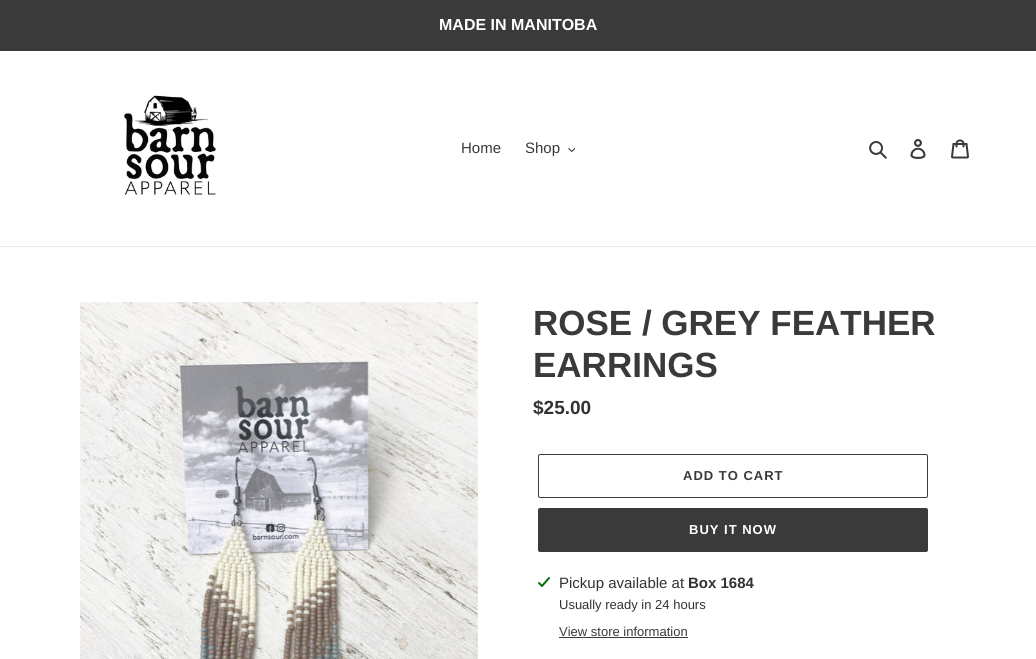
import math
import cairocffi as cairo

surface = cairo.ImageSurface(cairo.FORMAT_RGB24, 1036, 659)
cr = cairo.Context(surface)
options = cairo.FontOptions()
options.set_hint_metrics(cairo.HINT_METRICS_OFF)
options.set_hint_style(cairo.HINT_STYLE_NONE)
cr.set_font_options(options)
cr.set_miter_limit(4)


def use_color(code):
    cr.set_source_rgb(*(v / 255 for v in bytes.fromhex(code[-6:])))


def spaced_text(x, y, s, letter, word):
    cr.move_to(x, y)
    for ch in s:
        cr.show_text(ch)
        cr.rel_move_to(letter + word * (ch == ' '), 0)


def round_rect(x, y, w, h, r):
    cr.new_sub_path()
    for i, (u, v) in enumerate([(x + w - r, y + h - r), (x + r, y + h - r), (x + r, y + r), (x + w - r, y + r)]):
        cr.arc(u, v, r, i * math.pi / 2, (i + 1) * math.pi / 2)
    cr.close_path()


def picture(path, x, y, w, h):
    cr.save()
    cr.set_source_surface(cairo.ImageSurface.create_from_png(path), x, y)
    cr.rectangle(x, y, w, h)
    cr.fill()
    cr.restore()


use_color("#ffffff")
cr.paint()
use_color("#3a3a3a")
cr.rectangle(0, 0, 1036, 51)
cr.fill()
cr.select_font_face("Liberation Sans", cairo.FONT_SLANT_NORMAL, cairo.FONT_WEIGHT_BOLD)
cr.set_font_size(16)
use_color("#ffffff")
cr.move_to(439, 30)
cr.show_text("MADE IN MANITOBA")
use_color("#ebebeb")
cr.rectangle(0, 246, 1036, 1)
cr.fill()
picture("img1.png", 123, 94, 93, 103)
cr.select_font_face("Liberation Sans")
cr.set_font_size(15)
use_color("#3a3a3a")
cr.move_to(461, 153)
cr.show_text("Home")
cr.move_to(525, 153)
cr.show_text("Shop")
picture("img2.png", 568, 148, 7, 4)
picture("img3.png", 869, 141, 18, 18)
picture("img4.png", 910, 139, 16, 20)
picture("img5.png", 951, 139, 18, 20)
picture("img6.png", 80, 302, 398, 357)
cr.select_font_face("Liberation Sans", cairo.FONT_SLANT_NORMAL, cairo.FONT_WEIGHT_BOLD)
cr.set_font_size(35)
cr.move_to(533, 335)
cr.show_text("ROSE / GREY FEATHER")
cr.move_to(533, 377)
cr.show_text("EARRINGS")
cr.set_font_size(19)
use_color("#333232")
cr.move_to(533, 414)
cr.show_text("$25.00")
round_rect(538.5, 454.5, 389, 43, 1.5)
use_color("#3a3a3a")
cr.set_line_width(1)
cr.stroke()
cr.set_font_size(13)
spaced_text(683, 480, "ADD TO CART", 1, 0)
round_rect(538, 508, 390, 44, 2)
cr.fill()
use_color("#ffffff")
spaced_text(689, 534, "BUY IT NOW", 1, 0)
picture("img7.png", 538, 577, 12, 10)
cr.select_font_face("Liberation Sans")
cr.set_font_size(15)
use_color("#333232")
cr.move_to(559, 588)
cr.show_text("Pickup available at")
cr.select_font_face("Liberation Sans", cairo.FONT_SLANT_NORMAL, cairo.FONT_WEIGHT_BOLD)
cr.move_to(688, 588)
cr.show_text("Box 1684")
cr.select_font_face("Liberation Sans")
cr.set_font_size(13)
cr.move_to(559, 609)
cr.show_text("Usually ready in 24 hours")
use_color("#3a3a3a")
cr.move_to(559, 636)
cr.show_text("View store information")
cr.rectangle(559, 637, 129, 1)
cr.fill()
surface.write_to_png("result.png")
